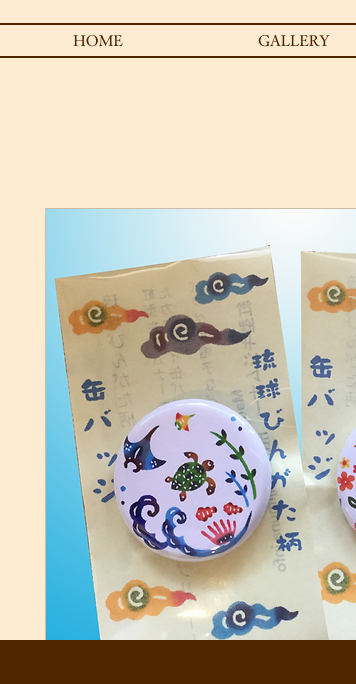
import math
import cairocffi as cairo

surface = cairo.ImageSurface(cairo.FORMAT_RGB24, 356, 684)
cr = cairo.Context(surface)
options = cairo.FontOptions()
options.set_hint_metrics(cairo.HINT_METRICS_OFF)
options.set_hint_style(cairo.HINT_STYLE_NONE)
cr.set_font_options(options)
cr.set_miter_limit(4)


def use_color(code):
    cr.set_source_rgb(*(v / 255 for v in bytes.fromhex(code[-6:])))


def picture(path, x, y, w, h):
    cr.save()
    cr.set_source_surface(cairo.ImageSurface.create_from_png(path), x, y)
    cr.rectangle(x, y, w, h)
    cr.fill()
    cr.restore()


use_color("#feecd2")
cr.paint()
use_color("#4f2500")
cr.rectangle(0, 23, 356, 2)
cr.fill()
cr.rectangle(0, 56, 356, 2)
cr.fill()
cr.select_font_face("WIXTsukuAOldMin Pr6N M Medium")
cr.set_font_size(15)
cr.move_to(73, 46)
cr.show_text("HOME")
cr.move_to(258, 46)
cr.show_text("GALLERY")
cr.rectangle(45.5, 208.5, 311, 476)
use_color("#cbbda8")
cr.set_line_width(1)
cr.stroke()
picture("img1.png", 46, 209, 310, 431)
use_color("#4f2500")
cr.rectangle(0, 640, 356, 44)
cr.fill()
surface.write_to_png("result.png")
